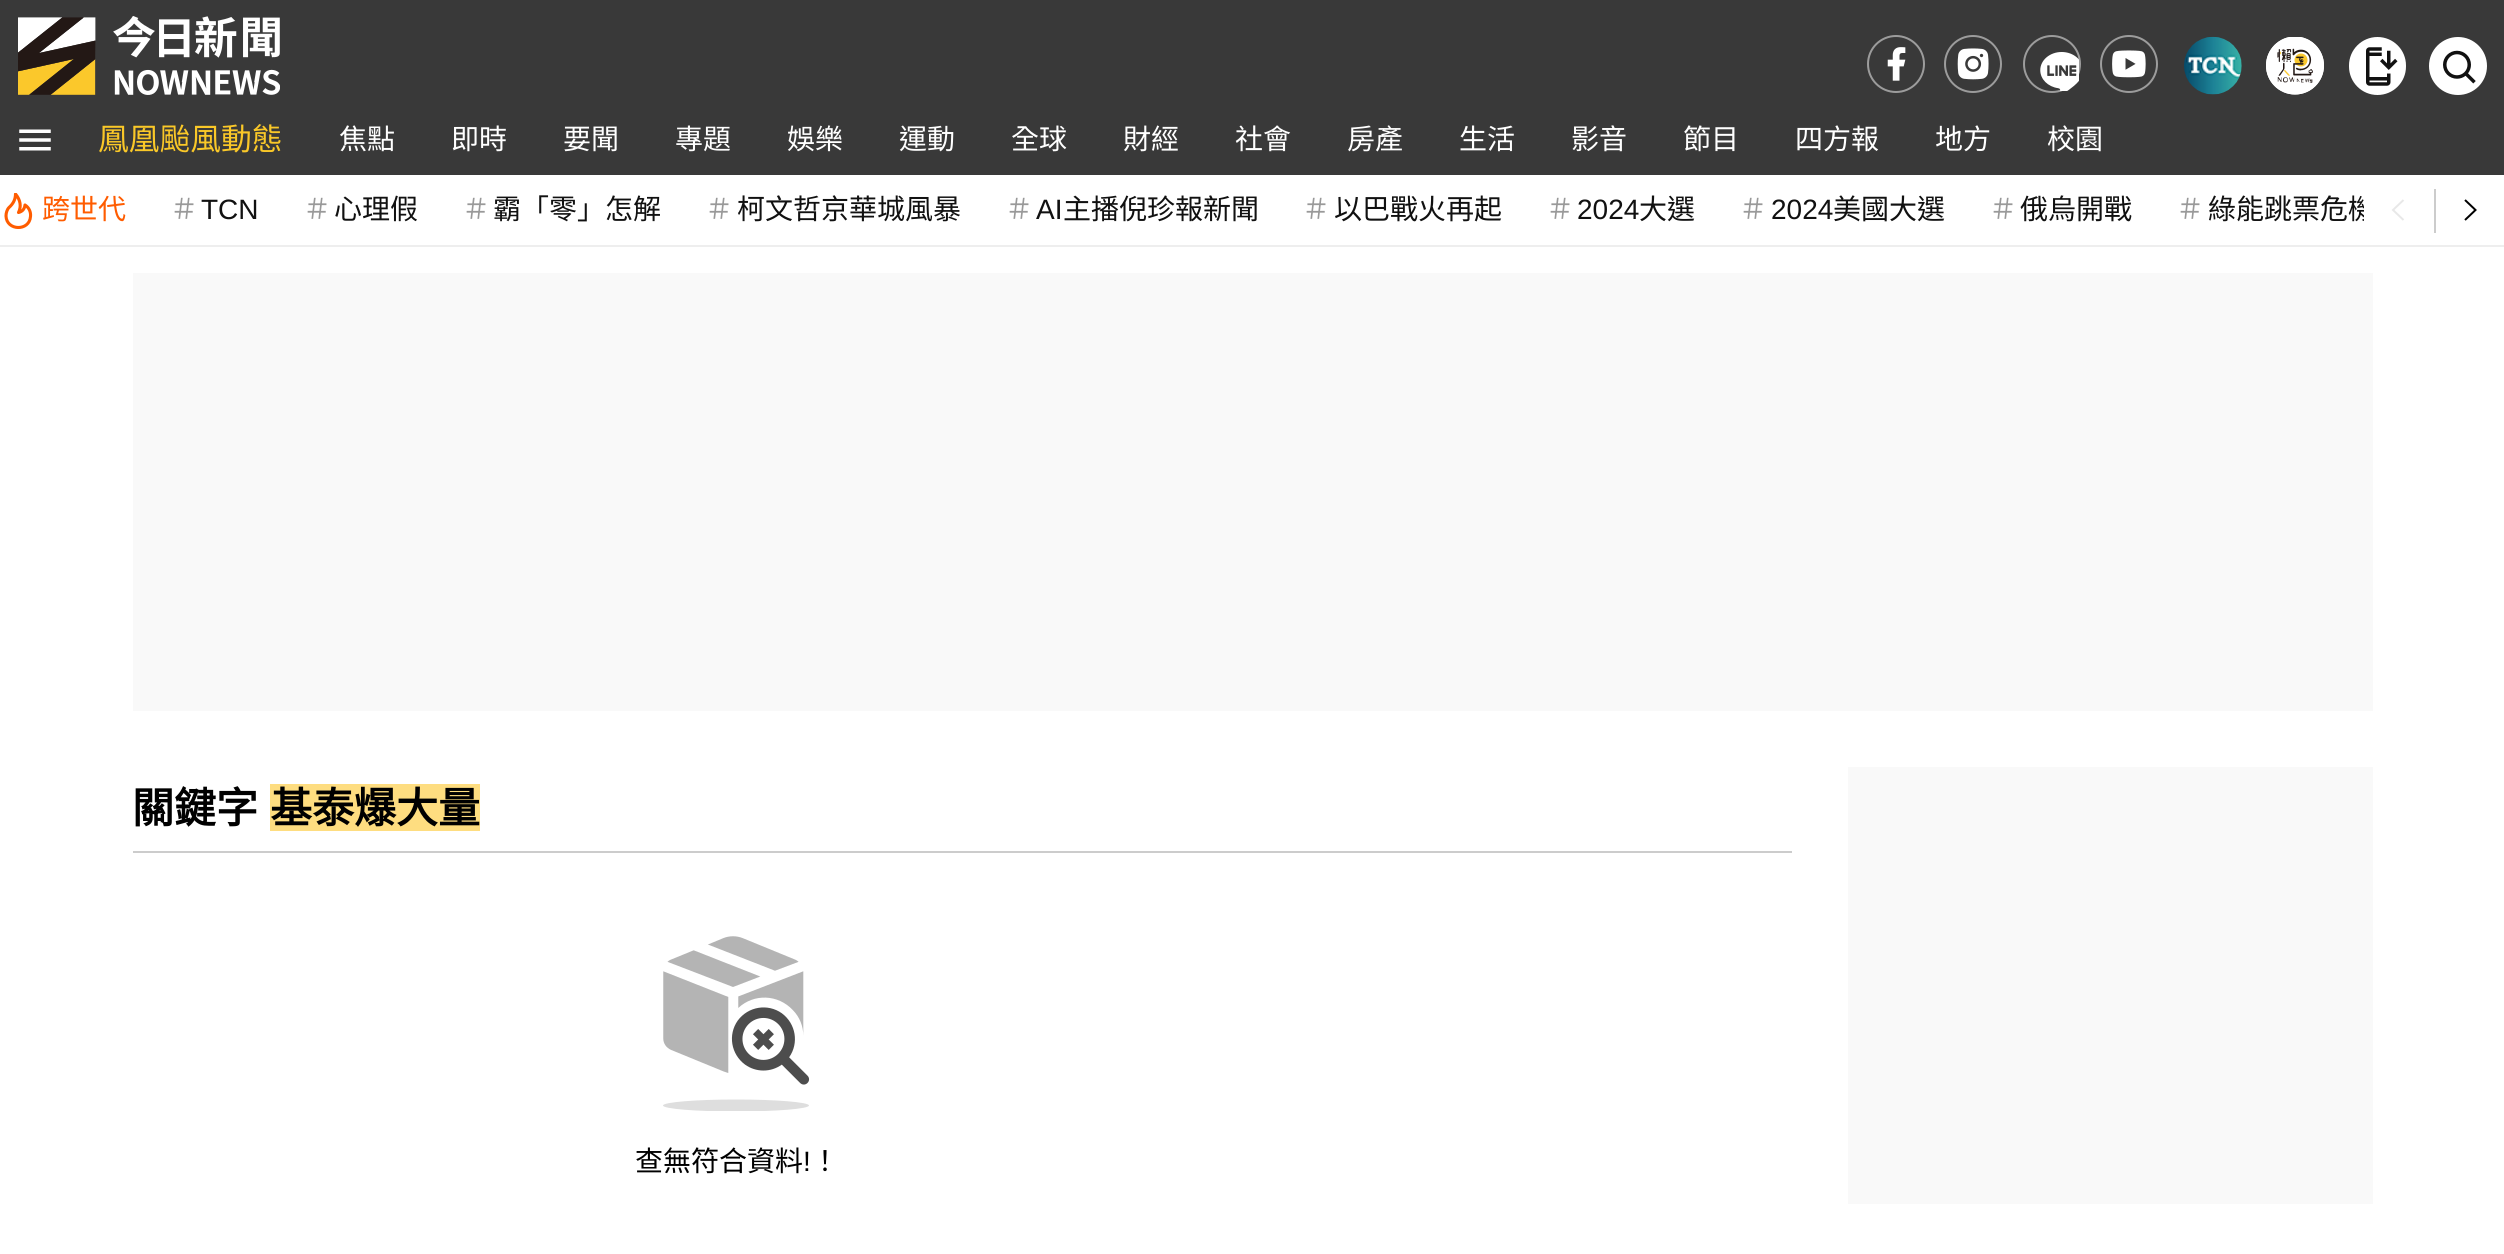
import math
import cairocffi as cairo

surface = cairo.ImageSurface(cairo.FORMAT_RGB24, 2504, 1254)
cr = cairo.Context(surface)
options = cairo.FontOptions()
options.set_hint_metrics(cairo.HINT_METRICS_OFF)
options.set_hint_style(cairo.HINT_STYLE_NONE)
cr.set_font_options(options)
cr.set_miter_limit(4)


def use_color(code):
    cr.set_source_rgb(*(v / 255 for v in bytes.fromhex(code[-6:])))


def round_rect(x, y, w, h, r):
    cr.new_sub_path()
    for i, (u, v) in enumerate([(x + w - r, y + h - r), (x + r, y + h - r), (x + r, y + r), (x + w - r, y + r)]):
        cr.arc(u, v, r, i * math.pi / 2, (i + 1) * math.pi / 2)
    cr.close_path()


def picture(path, x, y, w, h):
    cr.save()
    cr.set_source_surface(cairo.ImageSurface.create_from_png(path), x, y)
    cr.rectangle(x, y, w, h)
    cr.fill()
    cr.restore()


use_color("#ffffff")
cr.paint()
use_color("#393939")
cr.rectangle(0, 0, 2504, 175)
cr.fill()
picture("img1.png", 18, 16, 262, 79)
cr.arc(1896, 64, 28, 0, 2 * math.pi)
use_color("#9c9c9c")
cr.stroke()
picture("img2.png", 1887, 47, 19, 34)
cr.arc(1973, 64, 28, 0, 2 * math.pi)
cr.stroke()
picture("img3.png", 1957, 48, 32, 32)
cr.arc(2052, 64, 28, 0, 2 * math.pi)
cr.stroke()
picture("img4.png", 2040, 52, 39, 39)
cr.arc(2129, 64, 28, 0, 2 * math.pi)
cr.stroke()
picture("img5.png", 2112, 50, 34, 28)
picture("img6.png", 2184, 36, 58, 59)
picture("img7.png", 2266, 37, 58, 58)
picture("img8.png", 2266, 37, 58, 58)
use_color("#ffffff")
round_rect(2349, 37, 57, 58, 28.5)
cr.fill()
picture("img9.png", 2366, 47, 32, 39)
cr.arc(2458, 66, 29, 0, 2 * math.pi)
cr.fill()
picture("img10.png", 2443, 50, 33, 34)
picture("img11.png", 19, 129, 32, 22)
cr.select_font_face("Noto Sans CJK TC")
cr.set_font_size(30.75)
use_color("#fac828")
cr.move_to(98, 150)
cr.show_text("鳳凰颱風動態")
cr.set_font_size(28)
use_color("#ffffff")
cr.move_to(339, 149)
cr.show_text("焦點")
cr.move_to(451, 149)
cr.show_text("即時")
cr.move_to(563, 149)
cr.show_text("要聞")
cr.move_to(675, 149)
cr.show_text("專題")
cr.move_to(787, 149)
cr.show_text("娛樂")
cr.move_to(899, 149)
cr.show_text("運動")
cr.move_to(1011, 149)
cr.show_text("全球")
cr.move_to(1123, 149)
cr.show_text("財經")
cr.move_to(1235, 149)
cr.show_text("社會")
cr.move_to(1347, 149)
cr.show_text("房產")
cr.move_to(1459, 149)
cr.show_text("生活")
cr.move_to(1571, 149)
cr.show_text("影音")
cr.move_to(1683, 149)
cr.show_text("節目")
cr.move_to(1795, 149)
cr.show_text("四方報")
cr.move_to(1935, 149)
cr.show_text("地方")
cr.move_to(2047, 149)
cr.show_text("校園")
use_color("#eeeeee")
cr.rectangle(0, 245, 2504, 2)
cr.fill()
cr.save()
cr.rectangle(0, 193, 37, 36)
cr.clip()
cr.new_path()
cr.move_to(9, 207.5)
cr.curve_to(7, 209.5, 6, 213, 6, 216)
cr.curve_to(6.5, 231, 29.5, 231.5, 30.5, 216.5)
cr.curve_to(31, 212, 29, 207.5, 25, 205)
cr.curve_to(24.5, 209, 22.5, 211.5, 18.5, 212.5)
cr.curve_to(21.5, 206.5, 20.5, 200, 15.5, 194)
cr.curve_to(15.5, 199, 13.5, 203.5, 9, 207.5)
use_color("#ff5c00")
cr.set_line_width(3.1)
cr.set_line_cap(cairo.LINE_CAP_ROUND)
cr.set_line_join(cairo.LINE_JOIN_ROUND)
cr.stroke()
cr.restore()
use_color("#ff5c00")
cr.move_to(42, 219)
cr.show_text("跨世代")
use_color("#999999")
cr.move_to(170, 219)
cr.show_text("＃")
cr.select_font_face("Liberation Sans")
use_color("#111111")
cr.move_to(201, 219)
cr.show_text("TCN")
cr.select_font_face("Noto Sans CJK TC")
use_color("#999999")
cr.move_to(303, 219)
cr.show_text("＃")
use_color("#111111")
cr.move_to(334, 219)
cr.show_text("心理假")
use_color("#999999")
cr.move_to(462, 219)
cr.show_text("＃")
use_color("#111111")
cr.move_to(493, 219)
cr.show_text("霸「零」怎解")
use_color("#999999")
cr.move_to(705, 219)
cr.show_text("＃")
use_color("#111111")
cr.move_to(737, 219)
cr.show_text("柯文哲京華城風暴")
use_color("#999999")
cr.move_to(1005, 219)
cr.show_text("＃")
cr.select_font_face("Liberation Sans")
use_color("#111111")
cr.move_to(1036, 219)
cr.show_text("AI")
cr.select_font_face("Noto Sans CJK TC")
cr.move_to(1063, 219)
cr.show_text("主播倪珍報新聞")
use_color("#999999")
cr.move_to(1302, 219)
cr.show_text("＃")
use_color("#111111")
cr.move_to(1334, 219)
cr.show_text("以巴戰火再起")
use_color("#999999")
cr.move_to(1546, 219)
cr.show_text("＃")
cr.select_font_face("Liberation Sans")
use_color("#111111")
cr.move_to(1577, 219)
cr.show_text("2024")
cr.select_font_face("Noto Sans CJK TC")
cr.move_to(1639, 219)
cr.show_text("大選")
use_color("#999999")
cr.move_to(1739, 219)
cr.show_text("＃")
cr.select_font_face("Liberation Sans")
use_color("#111111")
cr.move_to(1771, 219)
cr.show_text("2024")
cr.select_font_face("Noto Sans CJK TC")
cr.move_to(1833, 219)
cr.show_text("美國大選")
use_color("#999999")
cr.move_to(1989, 219)
cr.show_text("＃")
use_color("#111111")
cr.move_to(2020, 219)
cr.show_text("俄烏開戰")
use_color("#999999")
cr.move_to(2176, 219)
cr.show_text("＃")
use_color("#111111")
cr.move_to(2208, 219)
cr.show_text("綠能跳票危機")
use_color("#ffffff")
cr.rectangle(2364, 195, 11, 27)
cr.fill()
cr.new_path()
cr.move_to(2403.5, 200)
cr.line_to(2393, 210)
cr.line_to(2403.5, 220)
use_color("#e8e8e8")
cr.stroke()
use_color("#cccccc")
cr.rectangle(2434, 189, 2, 44)
cr.fill()
cr.new_path()
cr.move_to(2465, 220)
cr.line_to(2475.5, 210)
cr.line_to(2465, 200)
use_color("#000000")
cr.stroke()
use_color("#f9f9f9")
cr.rectangle(133, 273, 2240, 438)
cr.fill()
use_color("#cccccc")
cr.rectangle(133, 851, 1659, 2)
cr.fill()
cr.select_font_face("Noto Sans CJK TC", cairo.FONT_SLANT_NORMAL, cairo.FONT_WEIGHT_BOLD)
cr.set_font_size(42)
use_color("#000000")
cr.move_to(132, 823)
cr.show_text("關鍵字")
use_color("#fedd80")
cr.rectangle(270, 784, 210, 47)
cr.fill()
use_color("#000000")
cr.move_to(270, 823)
cr.show_text("基泰爆大量")
picture("img12.png", 663, 936, 147, 175)
cr.select_font_face("Noto Sans CJK TC")
cr.set_font_size(28)
cr.move_to(635, 1171)
cr.show_text("查無符合資料")
cr.select_font_face("Liberation Sans")
cr.move_to(803, 1171)
cr.show_text("!")
cr.select_font_face("Noto Sans CJK TC")
cr.move_to(811, 1171)
cr.show_text("！")
use_color("#f9f9f9")
cr.rectangle(1848, 767, 525, 437)
cr.fill()
surface.write_to_png("result.png")
